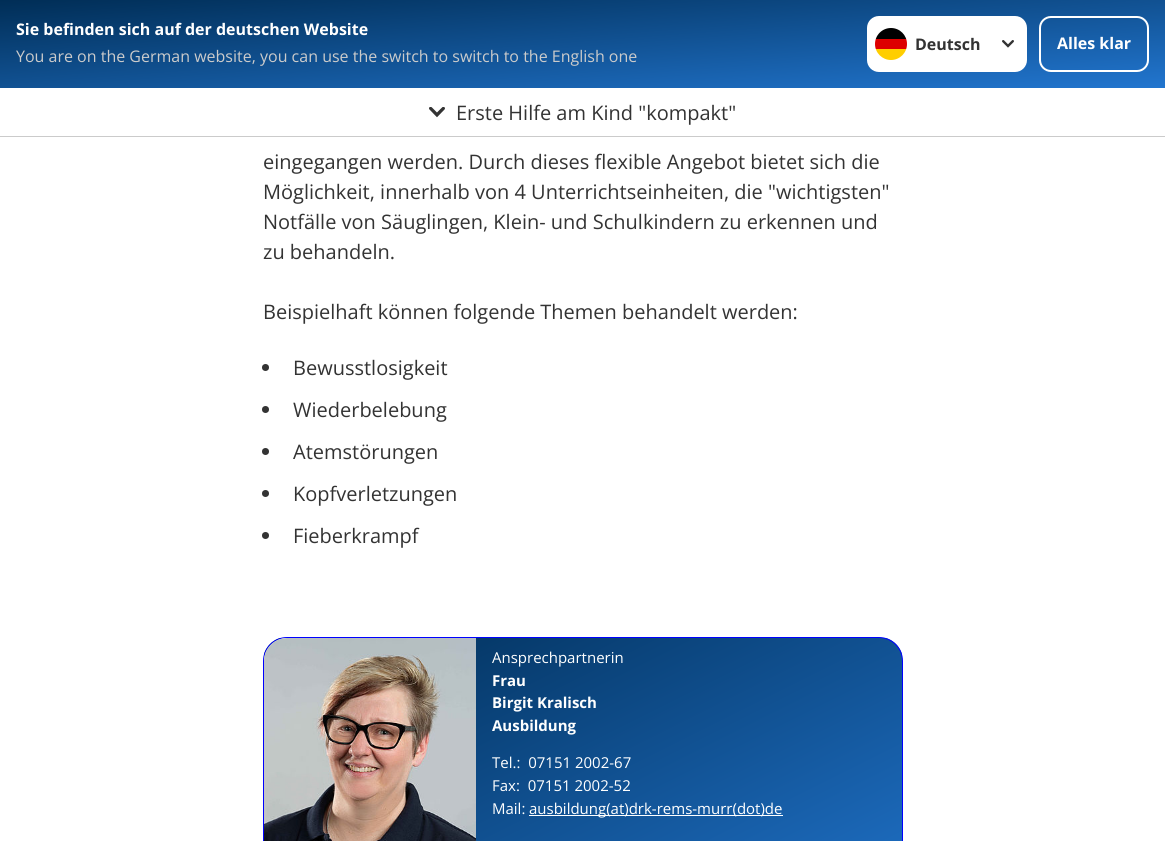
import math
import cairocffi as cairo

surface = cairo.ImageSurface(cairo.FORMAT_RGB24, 1165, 841)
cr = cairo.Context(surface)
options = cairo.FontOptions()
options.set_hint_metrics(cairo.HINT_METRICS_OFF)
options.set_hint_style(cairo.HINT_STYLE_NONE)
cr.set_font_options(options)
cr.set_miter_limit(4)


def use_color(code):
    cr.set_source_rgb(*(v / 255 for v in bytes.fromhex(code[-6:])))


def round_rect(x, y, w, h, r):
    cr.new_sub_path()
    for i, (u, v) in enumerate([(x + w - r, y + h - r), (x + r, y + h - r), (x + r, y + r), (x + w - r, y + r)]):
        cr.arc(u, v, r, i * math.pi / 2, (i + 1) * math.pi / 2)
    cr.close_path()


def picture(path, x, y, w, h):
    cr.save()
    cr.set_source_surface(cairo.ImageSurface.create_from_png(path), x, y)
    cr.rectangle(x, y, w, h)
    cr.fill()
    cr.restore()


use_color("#ffffff")
cr.paint()
gradient = cairo.LinearGradient(576, -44, 589, 132)
gradient.add_color_stop_rgba(0, 0, 0.176, 0.333, 1)
gradient.add_color_stop_rgba(1, 0.133, 0.463, 0.816, 1)
cr.set_source(gradient)
cr.rectangle(0, 0, 1165, 88)
cr.fill()
cr.select_font_face("Open Sans", cairo.FONT_SLANT_NORMAL, cairo.FONT_WEIGHT_BOLD)
cr.set_font_size(16)
use_color("#ffffff")
cr.move_to(16, 35)
cr.show_text("Sie befinden sich auf der deutschen Website")
cr.select_font_face("Open Sans")
use_color("#cbcbcb")
cr.move_to(16, 62)
cr.show_text("You are on the German website, you can use the switch to switch to the English one")
use_color("#ffffff")
round_rect(867, 16, 160, 56, 12)
cr.fill()
cr.save()
round_rect(875, 28, 32, 32, 16)
cr.clip()
use_color("#ffce00")
cr.rectangle(875, 49, 32, 11)
cr.fill()
use_color("#000000")
cr.rectangle(875, 28, 32, 11)
cr.fill()
use_color("#dd0000")
cr.rectangle(875, 39, 32, 10)
cr.fill()
cr.restore()
picture("img1.png", 1002, 40, 12, 8)
cr.select_font_face("Open Sans", cairo.FONT_SLANT_NORMAL, cairo.FONT_WEIGHT_BOLD)
use_color("#333333")
cr.move_to(915, 50)
cr.show_text("Deutsch")
round_rect(1040, 17, 108, 54, 11)
use_color("#ffffff")
cr.stroke()
cr.move_to(1057, 49)
cr.show_text("Alles klar")
use_color("#cbcbcb")
cr.rectangle(0, 136, 1165, 1)
cr.fill()
picture("img2.png", 429, 107, 16, 11)
cr.select_font_face("Open Sans")
cr.set_font_size(20)
use_color("#333333")
cr.move_to(456, 120)
cr.show_text("Erste Hilfe am Kind \"kompakt\"")
cr.move_to(263, 169)
cr.show_text("eingegangen werden. Durch dieses flexible Angebot bietet sich die")
cr.move_to(263, 199)
cr.show_text("Möglichkeit, innerhalb von 4 Unterrichtseinheiten, die \"wichtigsten\"")
cr.move_to(263, 229)
cr.show_text("Notfälle von Säuglingen, Klein- und Schulkindern zu erkennen und")
cr.move_to(263, 259)
cr.show_text("zu behandeln.")
cr.move_to(263, 319)
cr.show_text("Beispielhaft können folgende Themen behandelt werden:")
cr.new_path()
cr.arc(265.5, 367.5, 3.5, 0, 2 * math.pi)
cr.fill()
cr.move_to(293, 375)
cr.show_text("Bewusstlosigkeit")
cr.new_path()
cr.arc(265.5, 409.5, 3.5, 0, 2 * math.pi)
cr.fill()
cr.move_to(293, 417)
cr.show_text("Wiederbelebung")
cr.new_path()
cr.arc(265.5, 451.5, 3.5, 0, 2 * math.pi)
cr.fill()
cr.move_to(293, 459)
cr.show_text("Atemstörungen")
cr.new_path()
cr.arc(265.5, 493.5, 3.5, 0, 2 * math.pi)
cr.fill()
cr.move_to(293, 501)
cr.show_text("Kopfverletzungen")
cr.new_path()
cr.arc(265.5, 535.5, 3.5, 0, 2 * math.pi)
cr.fill()
cr.move_to(293, 543)
cr.show_text("Fieberkrampf")
cr.save()
round_rect(263, 637, 640, 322, 24)
cr.clip()
gradient = cairo.LinearGradient(455, 542, 711, 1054)
gradient.add_color_stop_rgba(0, 0, 0.176, 0.333, 1)
gradient.add_color_stop_rgba(1, 0.133, 0.463, 0.816, 1)
cr.set_source(gradient)
cr.rectangle(264, 638, 638, 203)
cr.fill()
cr.restore()
round_rect(263.5, 637.5, 639, 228, 23.5)
use_color("#0000ff")
cr.set_line_width(1)
cr.stroke()
use_color("#ffffff")
cr.new_path()
cr.move_to(287, 638)
cr.line_to(476, 638)
cr.line_to(476, 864)
cr.line_to(287, 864)
cr.curve_to(274.5, 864, 264, 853.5, 264, 841)
cr.line_to(264, 661)
cr.curve_to(264, 648.5, 274.5, 638, 287, 638)
cr.close_path()
cr.fill()
picture("img3.png", 264, 638, 212, 203)
cr.set_font_size(15)
cr.move_to(492, 663)
cr.show_text("Ansprechpartnerin")
cr.select_font_face("Open Sans", cairo.FONT_SLANT_NORMAL, cairo.FONT_WEIGHT_BOLD)
cr.move_to(492, 686)
cr.show_text("Frau")
cr.move_to(492, 708)
cr.show_text("Birgit Kralisch")
cr.move_to(492, 731)
cr.show_text("Ausbildung")
cr.select_font_face("Open Sans")
cr.move_to(492, 768)
cr.show_text("Tel.:  07151 2002-67")
cr.move_to(492, 791)
cr.show_text("Fax:  07151 2002-52")
cr.move_to(492, 814)
cr.show_text("Mail:")
cr.rectangle(529, 815, 254, 1)
cr.fill()
cr.move_to(529, 814)
cr.show_text("ausbildung(at)drk-rems-murr(dot)de")
surface.write_to_png("result.png")
